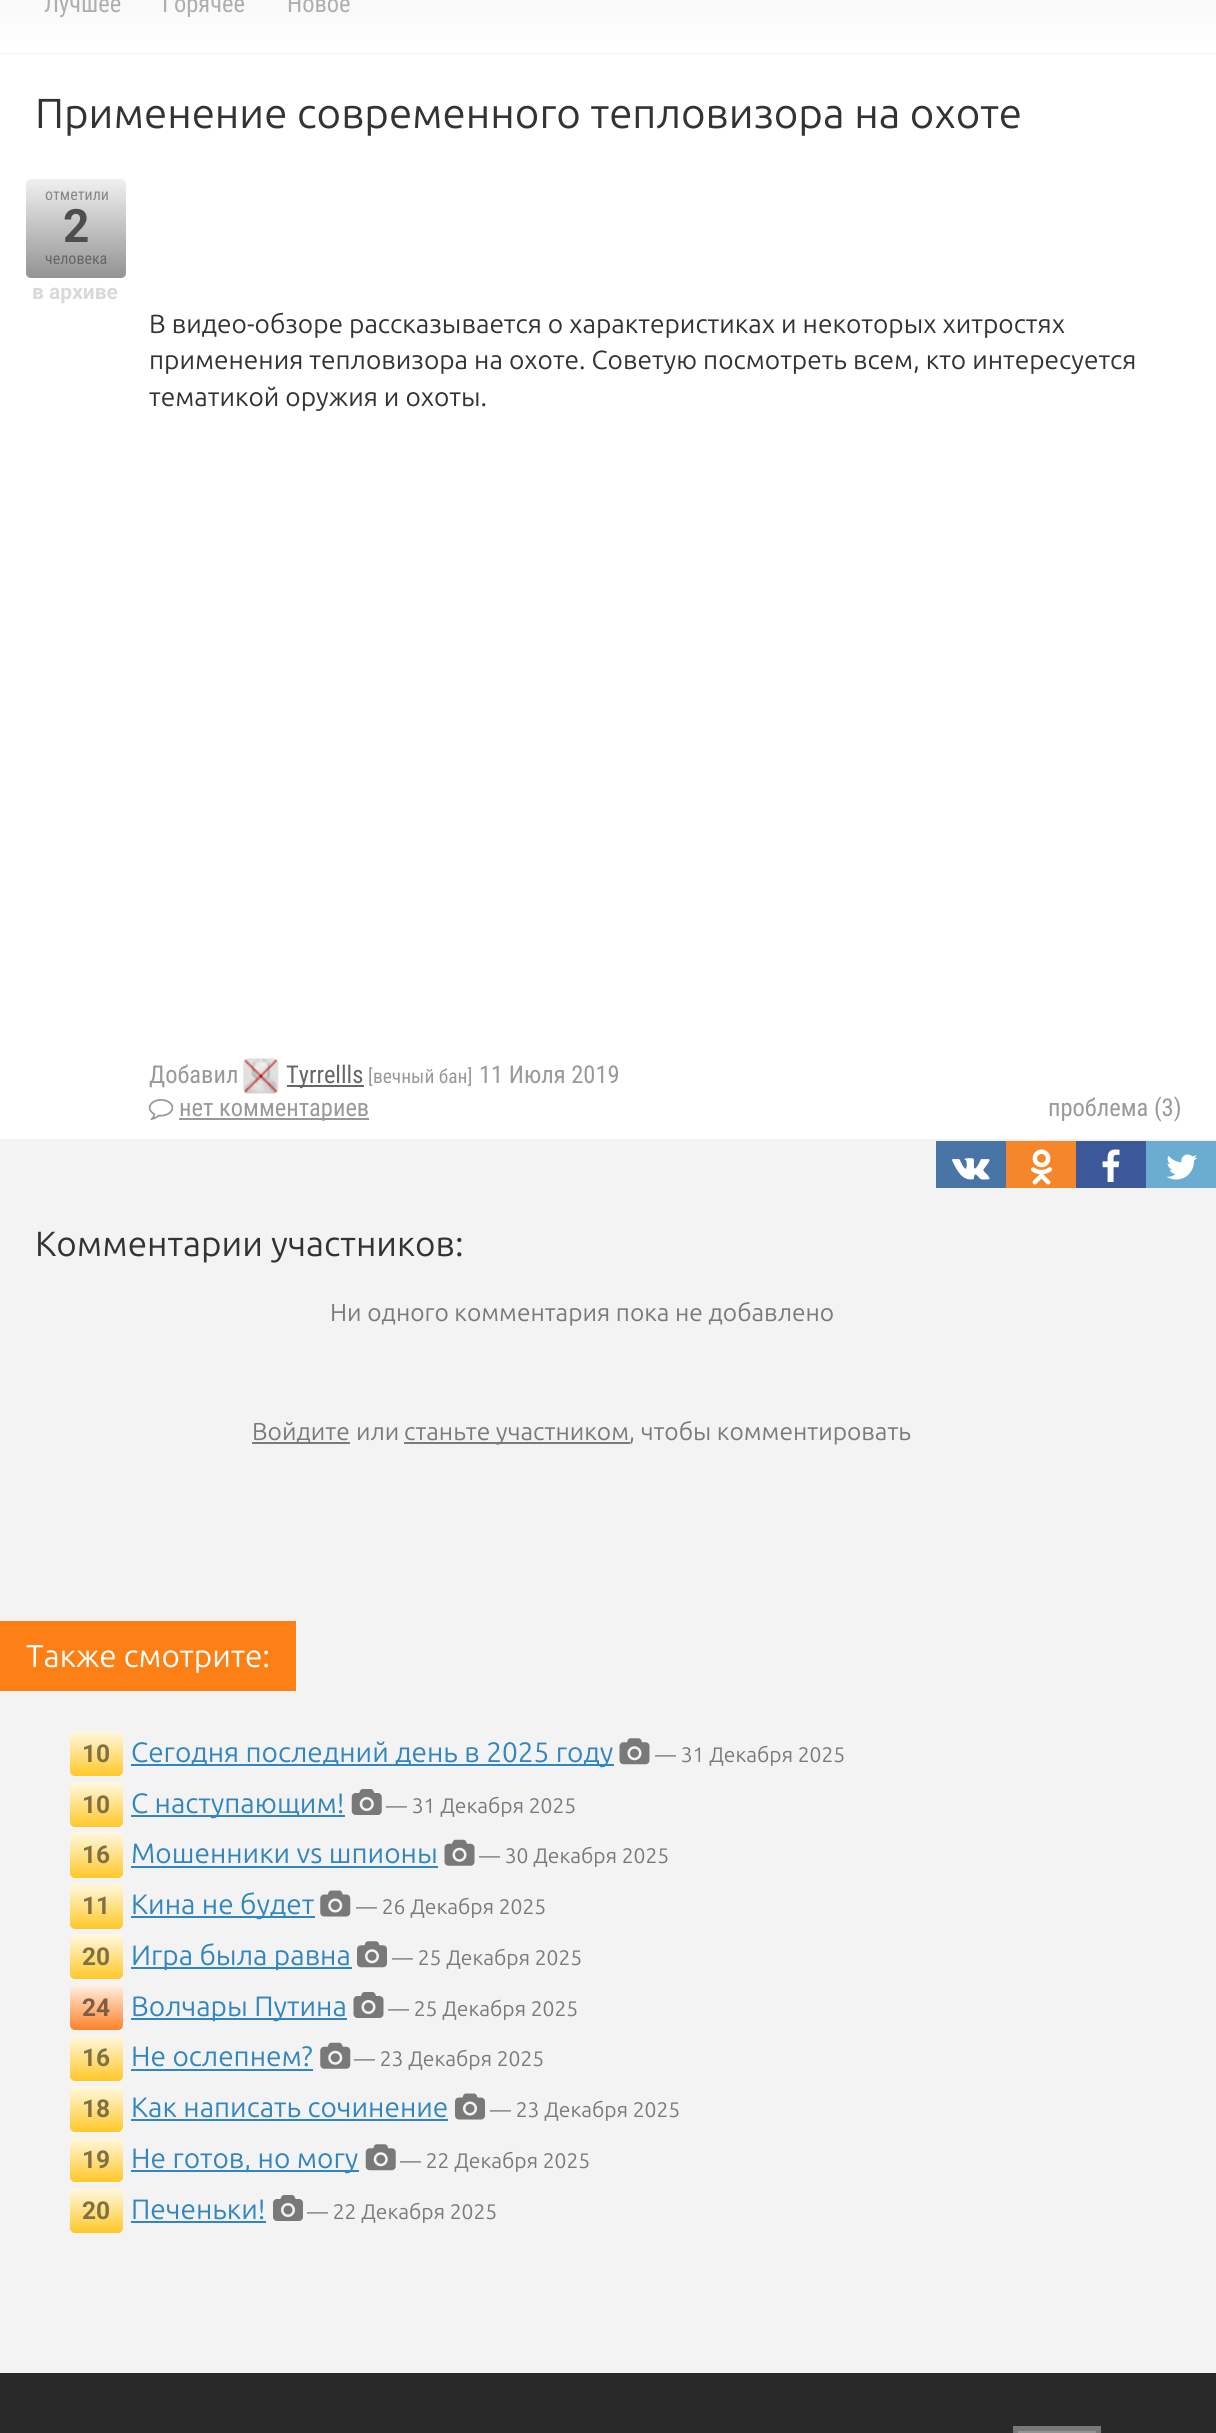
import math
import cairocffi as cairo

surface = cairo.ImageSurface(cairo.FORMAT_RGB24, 1216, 2433)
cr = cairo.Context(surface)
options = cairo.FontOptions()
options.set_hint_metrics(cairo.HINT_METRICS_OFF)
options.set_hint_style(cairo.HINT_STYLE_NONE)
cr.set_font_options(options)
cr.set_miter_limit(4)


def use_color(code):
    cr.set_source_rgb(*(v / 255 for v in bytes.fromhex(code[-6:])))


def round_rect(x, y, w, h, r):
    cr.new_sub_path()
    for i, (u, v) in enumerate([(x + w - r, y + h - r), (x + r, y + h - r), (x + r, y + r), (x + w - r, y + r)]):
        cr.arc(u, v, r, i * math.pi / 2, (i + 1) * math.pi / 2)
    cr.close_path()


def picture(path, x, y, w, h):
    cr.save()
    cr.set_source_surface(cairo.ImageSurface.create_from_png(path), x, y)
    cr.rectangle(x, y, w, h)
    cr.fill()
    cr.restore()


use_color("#f3f3f3")
cr.paint()
gradient = cairo.LinearGradient(608, -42, 608, 53)
gradient.add_color_stop_rgba(0, 0.953, 0.953, 0.953, 1)
gradient.add_color_stop_rgba(1, 1, 1, 1, 1)
cr.set_source(gradient)
cr.rectangle(0, 0, 1216, 53)
cr.fill()
cr.select_font_face("Roboto Condensed")
cr.set_font_size(24.5)
use_color("#aeaeae")
cr.move_to(44, 12)
cr.show_text("Лучшее")
cr.move_to(162, 12)
cr.show_text("Горячее")
cr.move_to(287, 12)
cr.show_text("Новое")
use_color("#ffffff")
cr.rectangle(0, 54, 1216, 1085)
cr.fill()
cr.select_font_face("Ubuntu")
cr.set_font_size(42)
use_color("#333333")
cr.move_to(35, 128)
cr.show_text("Применение современного тепловизора на охоте")
gradient = cairo.LinearGradient(76, 179, 76, 278)
gradient.add_color_stop_rgba(0, 0.941, 0.941, 0.941, 1)
gradient.add_color_stop_rgba(1, 0.576, 0.576, 0.576, 1)
cr.set_source(gradient)
round_rect(26, 179, 100, 99, 5)
cr.fill()
cr.select_font_face("Roboto Condensed")
cr.set_font_size(16)
use_color("#878787")
cr.move_to(45, 200)
cr.show_text("отметили")
cr.select_font_face("Roboto", cairo.FONT_SLANT_NORMAL, cairo.FONT_WEIGHT_BOLD)
cr.set_font_size(46)
use_color("#4e4e4e")
cr.move_to(63, 242)
cr.show_text("2")
cr.select_font_face("Roboto Condensed")
cr.set_font_size(16)
use_color("#666666")
cr.move_to(45, 264)
cr.show_text("человека")
cr.select_font_face("Roboto", cairo.FONT_SLANT_NORMAL, cairo.FONT_WEIGHT_BOLD)
cr.set_font_size(21)
use_color("#d9d9d9")
cr.move_to(32, 299)
cr.show_text("в архиве")
cr.select_font_face("Ubuntu")
cr.set_font_size(26.25)
use_color("#333333")
cr.move_to(149, 333)
cr.show_text("В видео-обзоре рассказывается о характеристиках и некоторых хитростях")
cr.move_to(149, 369)
cr.show_text("применения тепловизора на охоте. Советую посмотреть всем, кто интересуется")
cr.move_to(149, 406)
cr.show_text("тематикой оружия и охоты.")
cr.select_font_face("Roboto Condensed")
cr.set_font_size(24.5)
use_color("#999999")
cr.move_to(149, 1083)
cr.show_text("Добавил")
picture("img1.png", 243, 1058, 36, 36)
use_color("#666666")
cr.rectangle(287, 1085, 77, 2)
cr.fill()
cr.move_to(286, 1083)
cr.show_text("Tyrrellls")
cr.set_font_size(19.5)
use_color("#999999")
cr.move_to(368, 1083)
cr.show_text("[вечный бан]")
cr.set_font_size(24.5)
cr.move_to(479, 1083)
cr.show_text("11 Июля 2019")
picture("img2.png", 148, 1099, 26, 21)
cr.rectangle(179, 1118, 190, 2)
cr.fill()
cr.move_to(179, 1116)
cr.show_text("нет комментариев")
cr.move_to(1048, 1116)
cr.show_text("проблема (3)")
use_color("#4874a6")
cr.rectangle(936, 1141, 70, 47)
cr.fill()
picture("img3.png", 952, 1158, 38, 22)
use_color("#f58629")
cr.rectangle(1006, 1141, 70, 47)
cr.fill()
picture("img4.png", 1031, 1149, 21, 36)
use_color("#3b5998")
cr.rectangle(1076, 1141, 70, 47)
cr.fill()
picture("img5.png", 1102, 1149, 18, 33)
use_color("#6aadd1")
cr.rectangle(1146, 1141, 70, 47)
cr.fill()
picture("img6.png", 1166, 1154, 31, 26)
cr.select_font_face("Ubuntu")
cr.set_font_size(35)
use_color("#333333")
cr.move_to(35, 1256)
cr.show_text("Комментарии участников:")
cr.set_font_size(24.5)
use_color("#7a7a7a")
cr.move_to(330, 1321)
cr.show_text("Ни одного комментария пока не добавлено")
cr.rectangle(252, 1442, 98, 2)
cr.fill()
cr.move_to(252, 1440)
cr.show_text("Войдите")
cr.move_to(356, 1440)
cr.show_text("или")
cr.rectangle(404, 1442, 226, 2)
cr.fill()
cr.move_to(404, 1440)
cr.show_text("станьте участником")
cr.move_to(629, 1440)
cr.show_text(", чтобы комментировать")
use_color("#fc8016")
cr.rectangle(0, 1621, 296, 70)
cr.fill()
cr.set_font_size(31.5)
use_color("#ffffff")
cr.move_to(26, 1667)
cr.show_text("Также смотрите:")
gradient = cairo.LinearGradient(96, 1731, 96, 1776)
gradient.add_color_stop_rgba(0, 1, 0.976, 0.89, 1)
gradient.add_color_stop_rgba(1, 1, 0.784, 0.157, 1)
cr.set_source(gradient)
round_rect(70, 1731, 53, 45, 5)
cr.fill()
cr.select_font_face("Roboto", cairo.FONT_SLANT_NORMAL, cairo.FONT_WEIGHT_BOLD)
cr.set_font_size(24.5)
use_color("#807144")
cr.move_to(82, 1762)
cr.show_text("10")
use_color("#3286bf")
cr.rectangle(131, 1764, 483, 2)
cr.fill()
cr.select_font_face("Ubuntu")
cr.set_font_size(28)
cr.move_to(131, 1762)
cr.show_text("Сегодня последний день в 2025 году")
picture("img7.png", 619, 1738, 31, 27)
cr.set_font_size(21)
use_color("#7a7a7a")
cr.move_to(655, 1762)
cr.show_text("— 31 Декабря 2025")
gradient = cairo.LinearGradient(96, 1782, 96, 1827)
gradient.add_color_stop_rgba(0, 1, 0.976, 0.89, 1)
gradient.add_color_stop_rgba(1, 1, 0.784, 0.157, 1)
cr.set_source(gradient)
round_rect(70, 1782, 53, 45, 5)
cr.fill()
cr.select_font_face("Roboto", cairo.FONT_SLANT_NORMAL, cairo.FONT_WEIGHT_BOLD)
cr.set_font_size(24.5)
use_color("#807144")
cr.move_to(82, 1813)
cr.show_text("10")
use_color("#3286bf")
cr.rectangle(131, 1815, 214, 2)
cr.fill()
cr.select_font_face("Ubuntu")
cr.set_font_size(28)
cr.move_to(131, 1813)
cr.show_text("С наступающим!")
picture("img8.png", 351, 1789, 31, 26)
cr.set_font_size(21)
use_color("#7a7a7a")
cr.move_to(386, 1813)
cr.show_text("— 31 Декабря 2025")
gradient = cairo.LinearGradient(96, 1832, 96, 1878)
gradient.add_color_stop_rgba(0, 1, 0.976, 0.89, 1)
gradient.add_color_stop_rgba(1, 1, 0.784, 0.157, 1)
cr.set_source(gradient)
round_rect(70, 1832, 53, 46, 5)
cr.fill()
cr.select_font_face("Roboto", cairo.FONT_SLANT_NORMAL, cairo.FONT_WEIGHT_BOLD)
cr.set_font_size(24.5)
use_color("#807144")
cr.move_to(82, 1863)
cr.show_text("16")
cr.select_font_face("Ubuntu")
cr.set_font_size(28)
use_color("#3286bf")
cr.move_to(131, 1863)
cr.show_text("Мошенники vs шпионы")
cr.rectangle(131, 1866, 307, 2)
cr.fill()
picture("img9.png", 444, 1839, 31, 27)
cr.set_font_size(21)
use_color("#7a7a7a")
cr.move_to(479, 1863)
cr.show_text("— 30 Декабря 2025")
gradient = cairo.LinearGradient(96, 1883, 96, 1929)
gradient.add_color_stop_rgba(0, 1, 0.976, 0.89, 1)
gradient.add_color_stop_rgba(1, 1, 0.784, 0.157, 1)
cr.set_source(gradient)
round_rect(70, 1883, 53, 46, 5)
cr.fill()
cr.select_font_face("Roboto", cairo.FONT_SLANT_NORMAL, cairo.FONT_WEIGHT_BOLD)
cr.set_font_size(24.5)
use_color("#807144")
cr.move_to(82, 1914)
cr.show_text("11")
use_color("#3286bf")
cr.rectangle(131, 1916, 184, 2)
cr.fill()
cr.select_font_face("Ubuntu")
cr.set_font_size(28)
cr.move_to(131, 1914)
cr.show_text("Кина не будет")
picture("img10.png", 320, 1890, 31, 27)
cr.set_font_size(21)
use_color("#7a7a7a")
cr.move_to(356, 1914)
cr.show_text("— 26 Декабря 2025")
gradient = cairo.LinearGradient(96, 1934, 96, 1979)
gradient.add_color_stop_rgba(0, 1, 0.976, 0.89, 1)
gradient.add_color_stop_rgba(1, 1, 0.784, 0.157, 1)
cr.set_source(gradient)
round_rect(70, 1934, 53, 45, 5)
cr.fill()
cr.select_font_face("Roboto", cairo.FONT_SLANT_NORMAL, cairo.FONT_WEIGHT_BOLD)
cr.set_font_size(24.5)
use_color("#807144")
cr.move_to(82, 1965)
cr.show_text("20")
use_color("#3286bf")
cr.rectangle(131, 1967, 221, 2)
cr.fill()
cr.select_font_face("Ubuntu")
cr.set_font_size(28)
cr.move_to(131, 1965)
cr.show_text("Игра была равна")
picture("img11.png", 357, 1941, 30, 27)
cr.set_font_size(21)
use_color("#7a7a7a")
cr.move_to(392, 1965)
cr.show_text("— 25 Декабря 2025")
gradient = cairo.LinearGradient(96, 1985, 96, 2030)
gradient.add_color_stop_rgba(0, 1, 0.941, 0.886, 1)
gradient.add_color_stop_rgba(1, 1, 0.506, 0.165, 1)
cr.set_source(gradient)
round_rect(70, 1985, 53, 45, 5)
cr.fill()
cr.select_font_face("Roboto", cairo.FONT_SLANT_NORMAL, cairo.FONT_WEIGHT_BOLD)
cr.set_font_size(24.5)
use_color("#805c43")
cr.move_to(82, 2016)
cr.show_text("24")
use_color("#3286bf")
cr.rectangle(131, 2018, 216, 2)
cr.fill()
cr.select_font_face("Ubuntu")
cr.set_font_size(28)
cr.move_to(131, 2016)
cr.show_text("Волчары Путина")
picture("img12.png", 353, 1992, 31, 26)
cr.set_font_size(21)
use_color("#7a7a7a")
cr.move_to(388, 2016)
cr.show_text("— 25 Декабря 2025")
gradient = cairo.LinearGradient(96, 2035, 96, 2081)
gradient.add_color_stop_rgba(0, 1, 0.976, 0.89, 1)
gradient.add_color_stop_rgba(1, 1, 0.784, 0.157, 1)
cr.set_source(gradient)
round_rect(70, 2035, 53, 46, 5)
cr.fill()
cr.select_font_face("Roboto", cairo.FONT_SLANT_NORMAL, cairo.FONT_WEIGHT_BOLD)
cr.set_font_size(24.5)
use_color("#807144")
cr.move_to(82, 2066)
cr.show_text("16")
cr.select_font_face("Ubuntu")
cr.set_font_size(28)
use_color("#3286bf")
cr.move_to(131, 2066)
cr.show_text("Не ослепнем?")
cr.rectangle(131, 2069, 182, 2)
cr.fill()
picture("img13.png", 320, 2042, 31, 27)
cr.set_font_size(21)
use_color("#7a7a7a")
cr.move_to(354, 2066)
cr.show_text("— 23 Декабря 2025")
gradient = cairo.LinearGradient(96, 2086, 96, 2132)
gradient.add_color_stop_rgba(0, 1, 0.976, 0.89, 1)
gradient.add_color_stop_rgba(1, 1, 0.784, 0.157, 1)
cr.set_source(gradient)
round_rect(70, 2086, 53, 46, 5)
cr.fill()
cr.select_font_face("Roboto", cairo.FONT_SLANT_NORMAL, cairo.FONT_WEIGHT_BOLD)
cr.set_font_size(24.5)
use_color("#807144")
cr.move_to(82, 2117)
cr.show_text("18")
cr.select_font_face("Ubuntu")
cr.set_font_size(28)
use_color("#3286bf")
cr.move_to(131, 2117)
cr.show_text("Как написать сочинение")
cr.rectangle(131, 2119, 317, 2)
cr.fill()
picture("img14.png", 455, 2093, 30, 27)
cr.set_font_size(21)
use_color("#7a7a7a")
cr.move_to(490, 2117)
cr.show_text("— 23 Декабря 2025")
gradient = cairo.LinearGradient(96, 2137, 96, 2182)
gradient.add_color_stop_rgba(0, 1, 0.976, 0.89, 1)
gradient.add_color_stop_rgba(1, 1, 0.784, 0.157, 1)
cr.set_source(gradient)
round_rect(70, 2137, 53, 45, 5)
cr.fill()
cr.select_font_face("Roboto", cairo.FONT_SLANT_NORMAL, cairo.FONT_WEIGHT_BOLD)
cr.set_font_size(24.5)
use_color("#807144")
cr.move_to(82, 2168)
cr.show_text("19")
use_color("#3286bf")
cr.rectangle(131, 2170, 228, 2)
cr.fill()
cr.select_font_face("Ubuntu")
cr.set_font_size(28)
cr.move_to(131, 2168)
cr.show_text("Не готов, но могу")
picture("img15.png", 365, 2144, 31, 27)
cr.set_font_size(21)
use_color("#7a7a7a")
cr.move_to(400, 2168)
cr.show_text("— 22 Декабря 2025")
gradient = cairo.LinearGradient(96, 2188, 96, 2233)
gradient.add_color_stop_rgba(0, 1, 0.976, 0.89, 1)
gradient.add_color_stop_rgba(1, 1, 0.784, 0.157, 1)
cr.set_source(gradient)
round_rect(70, 2188, 53, 45, 5)
cr.fill()
cr.select_font_face("Roboto", cairo.FONT_SLANT_NORMAL, cairo.FONT_WEIGHT_BOLD)
cr.set_font_size(24.5)
use_color("#807144")
cr.move_to(82, 2219)
cr.show_text("20")
cr.select_font_face("Ubuntu")
cr.set_font_size(28)
use_color("#3286bf")
cr.move_to(131, 2219)
cr.show_text("Печеньки!")
cr.rectangle(131, 2221, 135, 2)
cr.fill()
picture("img16.png", 273, 2195, 30, 26)
cr.set_font_size(21)
use_color("#7a7a7a")
cr.move_to(307, 2219)
cr.show_text("— 22 Декабря 2025")
use_color("#292929")
cr.rectangle(0, 2373, 1216, 60)
cr.fill()
use_color("#949494")
cr.rectangle(1015.5, 2428.5, 83, 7)
cr.fill_preserve()
use_color("#787977")
cr.set_line_width(5)
cr.stroke()
surface.write_to_png("result.png")
